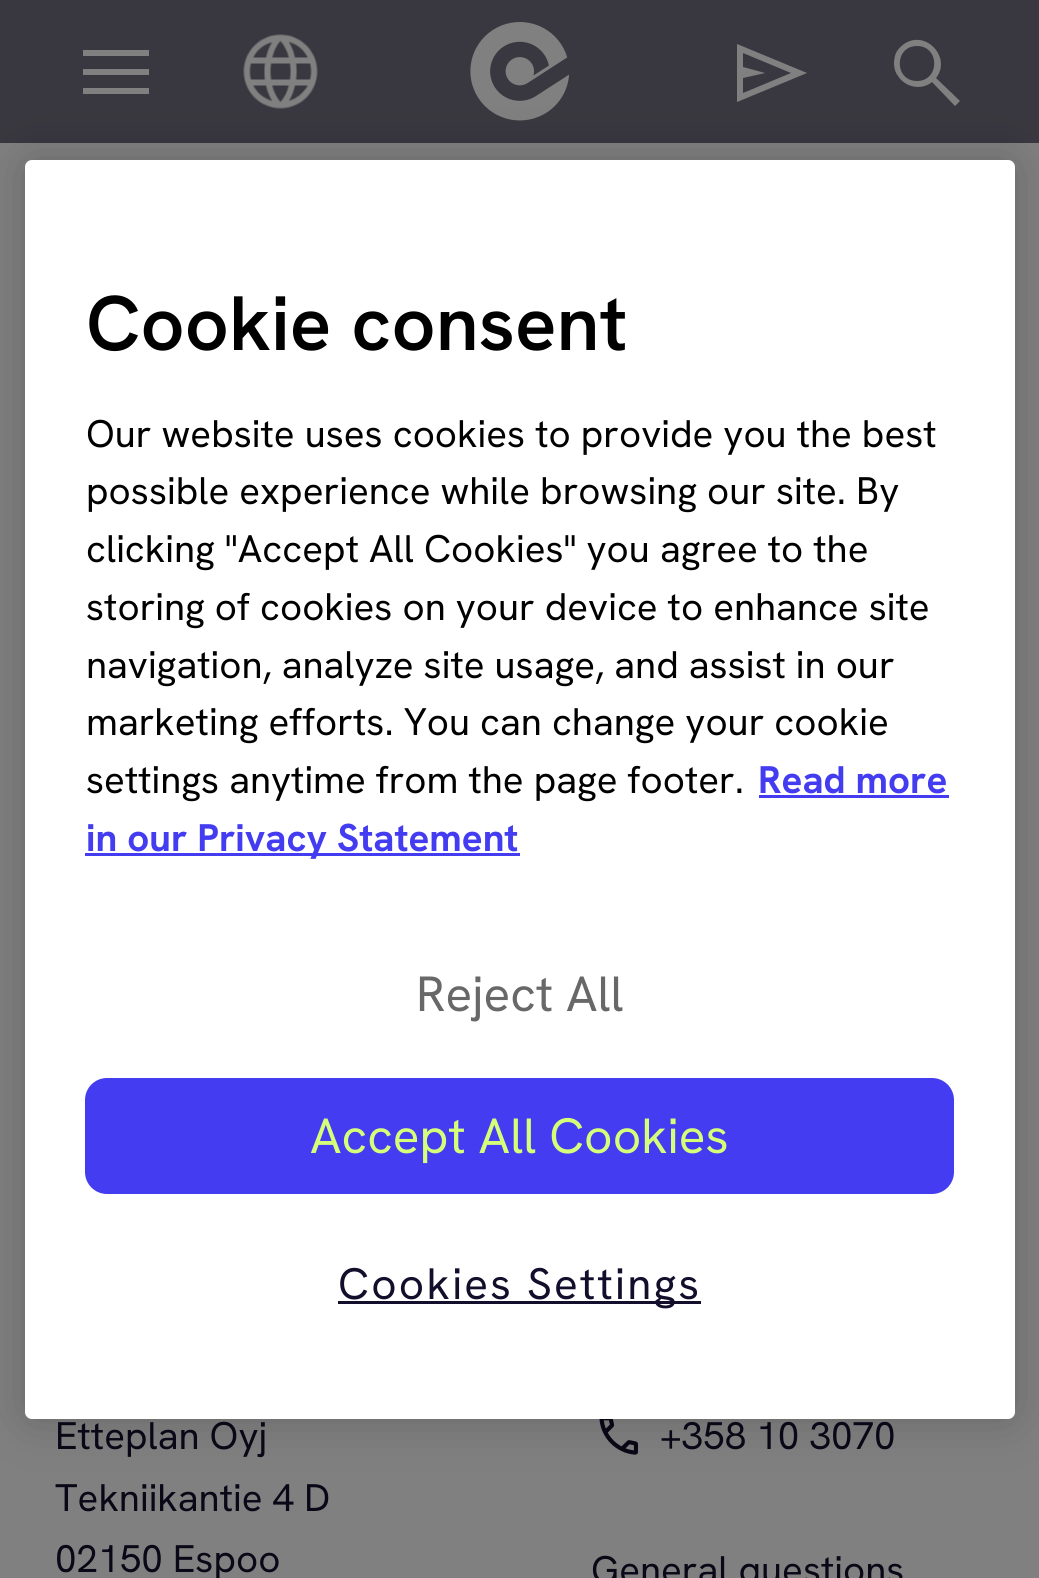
import math
import cairocffi as cairo

surface = cairo.ImageSurface(cairo.FORMAT_RGB24, 1039, 1578)
cr = cairo.Context(surface)
options = cairo.FontOptions()
options.set_hint_metrics(cairo.HINT_METRICS_OFF)
options.set_hint_style(cairo.HINT_STYLE_NONE)
cr.set_font_options(options)
cr.set_miter_limit(4)


def use_color(code):
    cr.set_source_rgb(*(v / 255 for v in bytes.fromhex(code[-6:])))


def spaced_text(x, y, s, letter, word):
    cr.move_to(x, y)
    for ch in s:
        cr.show_text(ch)
        cr.rel_move_to(letter + word * (ch == ' '), 0)


def round_rect(x, y, w, h, r):
    cr.new_sub_path()
    for i, (u, v) in enumerate([(x + w - r, y + h - r), (x + r, y + h - r), (x + r, y + r), (x + w - r, y + r)]):
        cr.arc(u, v, r, i * math.pi / 2, (i + 1) * math.pi / 2)
    cr.close_path()


def shadow(x, y, w, h, r, blur, alpha):
    cr.push_group_with_content(cairo.CONTENT_ALPHA)
    cr.set_operator(cairo.OPERATOR_SOURCE)
    for i in range(15, -16, -2):
        e = blur * i / 6
        if min(w, h) + 2 * e > 0:
            cr.set_source_rgba(0, 0, 0, alpha * math.erfc((i - 1) / 8.5) / 2)
            round_rect(x - e, y - e, w + 2 * e, h + 2 * e, max(0, min(r + e + blur * .6, min(w, h) / 2 + e)))
            cr.fill()
    cr.mask(cr.pop_group())


def picture(path, x, y, w, h):
    cr.save()
    cr.set_source_surface(cairo.ImageSurface.create_from_png(path), x, y)
    cr.rectangle(x, y, w, h)
    cr.fill()
    cr.restore()


use_color("#808080")
cr.paint()
use_color("#393840")
cr.rectangle(0, 0, 1039, 143)
cr.fill()
use_color("#808080")
cr.rectangle(83, 88, 66, 6)
cr.fill()
picture("img1.png", 243, 34, 75, 75)
picture("img2.png", 470, 22, 99, 99)
cr.new_path()
cr.move_to(737, 102)
cr.line_to(737, 44)
cr.line_to(807, 73)
cr.close_path()
cr.move_to(743, 93)
cr.line_to(791, 73)
cr.line_to(743, 53)
cr.line_to(743, 67)
cr.line_to(765, 73)
cr.line_to(743, 78)
cr.close_path()
cr.fill()
cr.new_path()
cr.move_to(955, 106)
cr.line_to(932, 82)
cr.curve_to(921, 91, 905, 87, 898, 76)
cr.curve_to(894, 71, 893, 63, 895, 56)
cr.curve_to(896, 51, 900, 47, 904, 44)
cr.curve_to(926, 29, 952, 58, 936, 78)
cr.line_to(960, 101)
cr.close_path()
cr.move_to(917, 81)
cr.curve_to(940, 81, 940, 46, 917, 46)
cr.curve_to(894, 46, 894, 81, 917, 81)
cr.close_path()
cr.fill()
picture("img3.png", 599, 1419, 39, 36)
use_color("#000000")
shadow(25, 160, 990, 1259, 7, 25, 0.2)
use_color("#ffffff")
round_rect(25, 160, 990, 1259, 7)
cr.fill()
cr.select_font_face("Hanken Grotesk SemiBold")
cr.set_font_size(77)
use_color("#000000")
cr.move_to(86, 350)
cr.show_text("Cookie consent")
cr.select_font_face("Hanken Grotesk")
cr.set_font_size(38.5)
cr.move_to(86, 447)
cr.show_text("Our website uses cookies to provide you the best")
cr.move_to(86, 504)
cr.show_text("possible experience while browsing our site. By")
cr.move_to(86, 562)
cr.show_text("clicking \"Accept All Cookies\" you agree to the")
cr.move_to(86, 620)
cr.show_text("storing of cookies on your device to enhance site")
cr.move_to(86, 678)
cr.show_text("navigation, analyze site usage, and assist in our")
cr.move_to(86, 735)
cr.show_text("marketing efforts. You can change your cookie")
cr.move_to(86, 793)
cr.show_text("settings anytime from the page footer.")
cr.select_font_face("Hanken Grotesk", cairo.FONT_SLANT_NORMAL, cairo.FONT_WEIGHT_BOLD)
use_color("#443cf0")
cr.move_to(758, 793)
cr.show_text("Read more")
cr.rectangle(759, 795, 190, 3)
cr.fill()
cr.rectangle(85, 853, 435, 3)
cr.fill()
cr.move_to(86, 851)
cr.show_text("in our Privacy Statement")
cr.select_font_face("Hanken Grotesk")
cr.set_font_size(49.5)
use_color("#686868")
cr.move_to(416, 1011)
cr.show_text("Reject All")
use_color("#443cf0")
round_rect(86.5, 1079.5, 866, 113, 20.5)
cr.fill_preserve()
cr.set_line_width(3)
cr.stroke()
use_color("#d6ff79")
cr.move_to(310, 1153)
cr.show_text("Accept All Cookies")
use_color("#130e2b")
cr.rectangle(338, 1301, 363, 3)
cr.fill()
cr.set_font_size(44)
spaced_text(338, 1299, "Cookies Settings", 2.25, 0)
use_color("#808080")
cr.rectangle(83, 50, 66, 6)
cr.fill()
cr.rectangle(83, 69, 66, 6)
cr.fill()
cr.set_font_size(38.5)
use_color("#0a0716")
cr.move_to(55, 1449)
cr.show_text("Etteplan Oyj")
cr.move_to(55, 1511)
cr.show_text("Tekniikantie 4 D")
cr.move_to(55, 1572)
cr.show_text("02150 Espoo")
cr.move_to(660, 1449)
cr.show_text("+358 10 3070")
cr.move_to(591, 1583)
cr.show_text("General questions")
surface.write_to_png("result.png")
